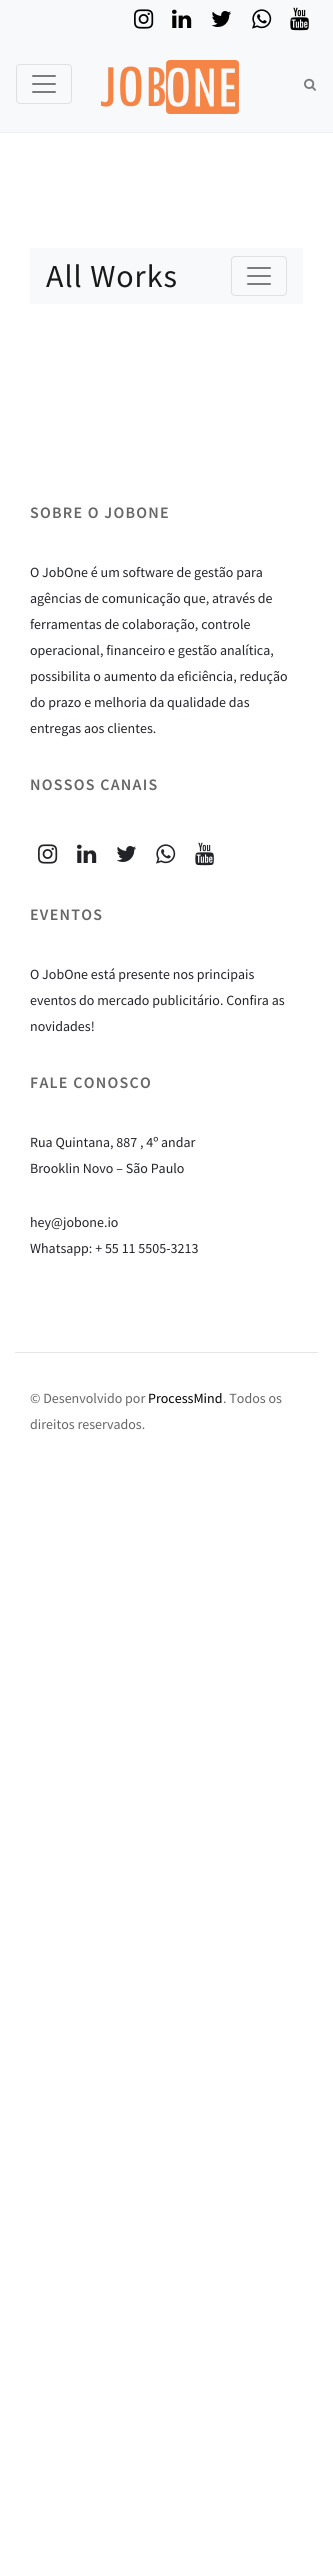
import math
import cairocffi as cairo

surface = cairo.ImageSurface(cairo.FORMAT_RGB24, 333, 2567)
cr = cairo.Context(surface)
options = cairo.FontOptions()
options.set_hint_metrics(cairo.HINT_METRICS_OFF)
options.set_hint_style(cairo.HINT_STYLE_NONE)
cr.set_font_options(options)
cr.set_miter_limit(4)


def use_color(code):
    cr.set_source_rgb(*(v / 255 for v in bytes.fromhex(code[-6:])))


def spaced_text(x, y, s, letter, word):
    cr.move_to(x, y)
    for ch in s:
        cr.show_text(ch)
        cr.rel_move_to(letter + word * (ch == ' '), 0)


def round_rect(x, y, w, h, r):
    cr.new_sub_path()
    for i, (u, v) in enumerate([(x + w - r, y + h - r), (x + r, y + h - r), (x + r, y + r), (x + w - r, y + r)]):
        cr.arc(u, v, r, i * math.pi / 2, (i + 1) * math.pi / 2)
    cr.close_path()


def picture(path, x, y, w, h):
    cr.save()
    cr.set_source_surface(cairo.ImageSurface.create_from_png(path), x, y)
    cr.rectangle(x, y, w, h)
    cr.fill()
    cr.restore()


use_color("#ffffff")
cr.paint()
use_color("#f8f9fa")
cr.rectangle(0, 0, 333, 132)
cr.fill()
picture("img1.png", 134, 9, 20, 20)
picture("img2.png", 172, 9, 20, 19)
picture("img3.png", 211, 11, 20, 16)
picture("img4.png", 252, 9, 20, 20)
picture("img5.png", 290, 7, 19, 24)
use_color("#f0f2f7")
cr.rectangle(0, 132, 333, 1)
cr.fill()
round_rect(16.5, 64.5, 55, 39, 3.5)
use_color("#dfe0e1")
cr.set_line_width(1)
cr.stroke()
picture("img6.png", 32, 75, 24, 18)
picture("img7.png", 101, 60, 138, 54)
picture("img8.png", 304, 78, 12, 13)
use_color("#f8f9fa")
cr.rectangle(30, 248, 273, 56)
cr.fill()
cr.select_font_face("Source Sans Pro")
cr.set_font_size(32)
use_color("#191919")
spaced_text(46, 287, "All Works", 1, 0)
round_rect(231.5, 256.5, 55, 39, 3.5)
use_color("#dfe0e1")
cr.stroke()
picture("img6.png", 247, 267, 24, 18)
use_color("#e6e6e6")
cr.rectangle(15, 1352, 303, 1)
cr.fill()
cr.select_font_face("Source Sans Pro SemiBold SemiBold")
cr.set_font_size(16)
use_color("#666666")
spaced_text(30, 518, "SOBRE O JOBONE", 1.25, 0)
cr.select_font_face("Source Sans Pro")
cr.set_font_size(14)
use_color("#222328")
cr.move_to(30, 577)
cr.show_text("O JobOne é um software de gestão para")
cr.move_to(30, 603)
cr.show_text("agências de comunicação que, através de")
cr.move_to(30, 629)
cr.show_text("ferramentas de colaboração, controle")
cr.move_to(30, 655)
cr.show_text("operacional, financeiro e gestão analítica,")
cr.move_to(30, 681)
cr.show_text("possibilita o aumento da eficiência, redução")
cr.move_to(30, 707)
cr.show_text("do prazo e melhoria da qualidade das")
cr.move_to(30, 733)
cr.show_text("entregas aos clientes.")
cr.select_font_face("Source Sans Pro SemiBold SemiBold")
cr.set_font_size(16)
use_color("#666666")
spaced_text(30, 790, "NOSSOS CANAIS", 1.25, 0)
picture("img9.png", 38, 844, 20, 20)
picture("img10.png", 77, 844, 20, 19)
picture("img11.png", 116, 846, 20, 16)
picture("img12.png", 156, 844, 20, 20)
picture("img13.png", 195, 842, 19, 24)
spaced_text(30, 920, "EVENTOS", 1.25, 0)
cr.select_font_face("Source Sans Pro")
cr.set_font_size(14)
use_color("#222328")
cr.move_to(30, 979)
cr.show_text("O JobOne está presente nos principais")
cr.move_to(30, 1005)
cr.show_text("eventos do mercado publicitário. Confira as")
cr.move_to(30, 1031)
cr.show_text("novidades!")
cr.select_font_face("Source Sans Pro SemiBold SemiBold")
cr.set_font_size(16)
use_color("#666666")
spaced_text(30, 1088, "FALE CONOSCO", 1.25, 0)
cr.select_font_face("Source Sans Pro")
cr.set_font_size(14)
use_color("#222328")
cr.move_to(30, 1147)
cr.show_text("Rua Quintana, 887 , 4º andar")
cr.move_to(30, 1173)
cr.show_text("Brooklin Novo – São Paulo")
cr.move_to(30, 1227)
cr.show_text("hey@jobone.io")
cr.move_to(30, 1253)
cr.show_text("Whatsapp: + 55 11 5505-3213")
use_color("#666666")
cr.move_to(30, 1403)
cr.show_text("© Desenvolvido por")
use_color("#000000")
cr.move_to(148, 1403)
cr.show_text("ProcessMind")
use_color("#666666")
cr.move_to(223, 1403)
cr.show_text(". Todos os")
cr.move_to(30, 1429)
cr.show_text("direitos reservados.")
surface.write_to_png("result.png")
